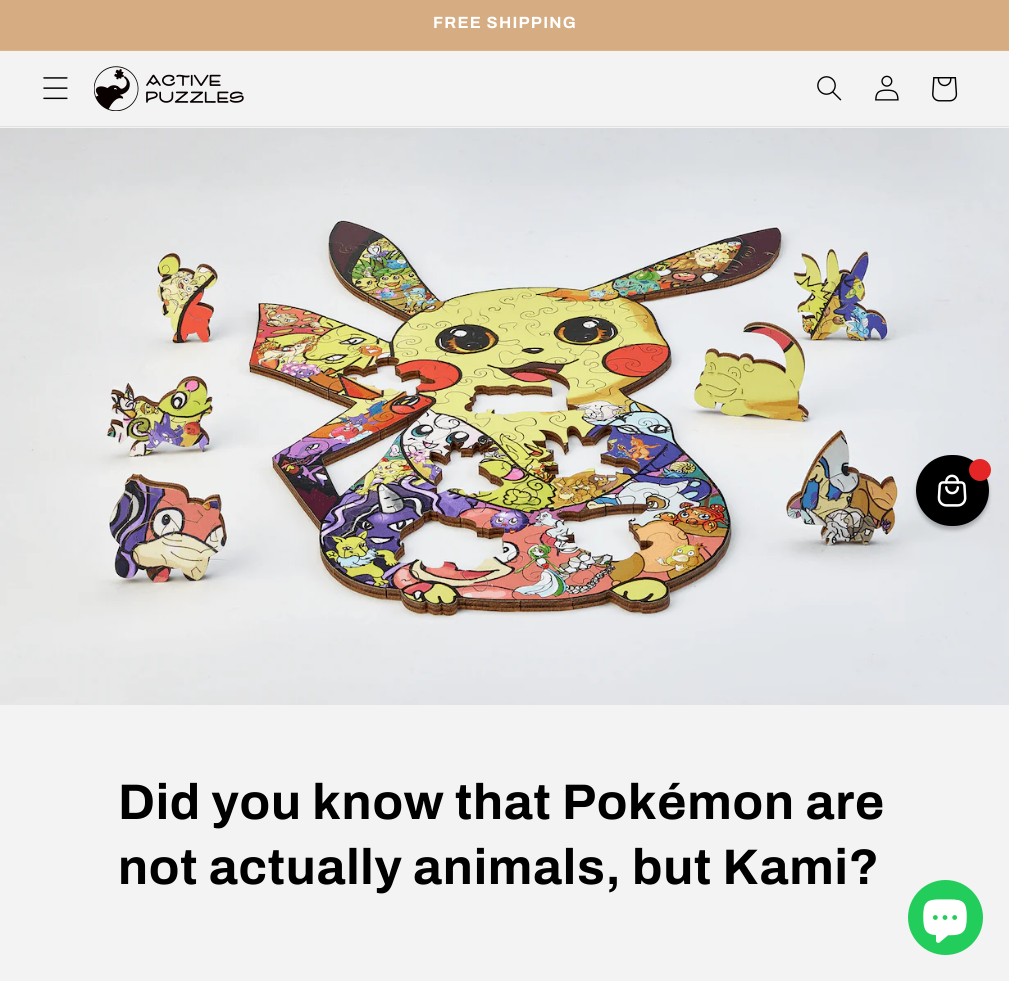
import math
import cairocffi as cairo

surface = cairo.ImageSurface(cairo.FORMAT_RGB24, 1009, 981)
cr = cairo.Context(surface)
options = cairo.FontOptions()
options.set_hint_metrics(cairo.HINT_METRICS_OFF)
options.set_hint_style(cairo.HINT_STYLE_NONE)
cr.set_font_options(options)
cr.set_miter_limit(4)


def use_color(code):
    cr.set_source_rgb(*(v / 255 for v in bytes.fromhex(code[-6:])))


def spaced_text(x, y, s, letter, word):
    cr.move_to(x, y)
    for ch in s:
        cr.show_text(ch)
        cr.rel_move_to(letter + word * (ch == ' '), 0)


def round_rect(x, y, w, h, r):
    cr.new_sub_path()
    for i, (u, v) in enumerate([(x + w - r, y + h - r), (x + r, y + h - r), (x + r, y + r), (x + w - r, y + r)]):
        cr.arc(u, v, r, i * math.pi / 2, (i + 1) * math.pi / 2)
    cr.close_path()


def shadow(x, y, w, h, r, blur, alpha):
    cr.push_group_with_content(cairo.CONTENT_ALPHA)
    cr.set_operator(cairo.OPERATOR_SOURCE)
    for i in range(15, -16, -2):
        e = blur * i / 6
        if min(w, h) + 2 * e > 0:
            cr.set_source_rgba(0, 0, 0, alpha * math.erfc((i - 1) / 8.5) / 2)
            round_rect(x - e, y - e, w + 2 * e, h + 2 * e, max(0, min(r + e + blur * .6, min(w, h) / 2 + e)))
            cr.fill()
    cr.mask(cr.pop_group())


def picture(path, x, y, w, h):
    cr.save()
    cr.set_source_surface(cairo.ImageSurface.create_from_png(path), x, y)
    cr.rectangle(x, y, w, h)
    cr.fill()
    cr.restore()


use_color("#f3f3f3")
cr.paint()
use_color("#d6ac82")
cr.rectangle(0, 0, 1009, 50)
cr.fill()
use_color("#d9b38c")
cr.rectangle(0, 50, 1009, 1)
cr.fill()
cr.select_font_face("Archivo", cairo.FONT_SLANT_NORMAL, cairo.FONT_WEIGHT_BOLD)
cr.set_font_size(16.25)
use_color("#ffffff")
spaced_text(433, 28, "FREE SHIPPING", 1.25, 0)
use_color("#e0e0e0")
cr.rectangle(0, 126, 1009, 1)
cr.fill()
picture("img1.png", 43, 77, 25, 23)
picture("img2.png", 94, 66, 150, 45)
picture("img3.png", 817, 76, 25, 25)
picture("img4.png", 875, 75, 24, 26)
picture("img5.png", 932, 77, 26, 25)
picture("img7.png", 0, 128, 1009, 577)
use_color("#000000")
shadow(916, 459, 73, 71, 35.5, 2, 0.25)
use_color("#000000")
round_rect(916, 455, 73, 71, 35.5)
cr.fill()
use_color("#e42626")
cr.arc(980, 470, 11, 0, 2 * math.pi)
cr.fill()
picture("img6.png", 937, 474, 30, 33)
cr.set_font_size(50)
use_color("#000000")
spaced_text(118, 819, "Did you know that Pokémon are", 0.75, 0)
spaced_text(118, 884, "not actually animals, but Kami?", 0.75, 0)
use_color("#22cd5b")
cr.new_path()
cr.arc(945.5, 917.5, 37.5, 0, 2 * math.pi)
cr.fill()
picture("img8.png", 923, 899, 44, 44)
surface.write_to_png("result.png")
